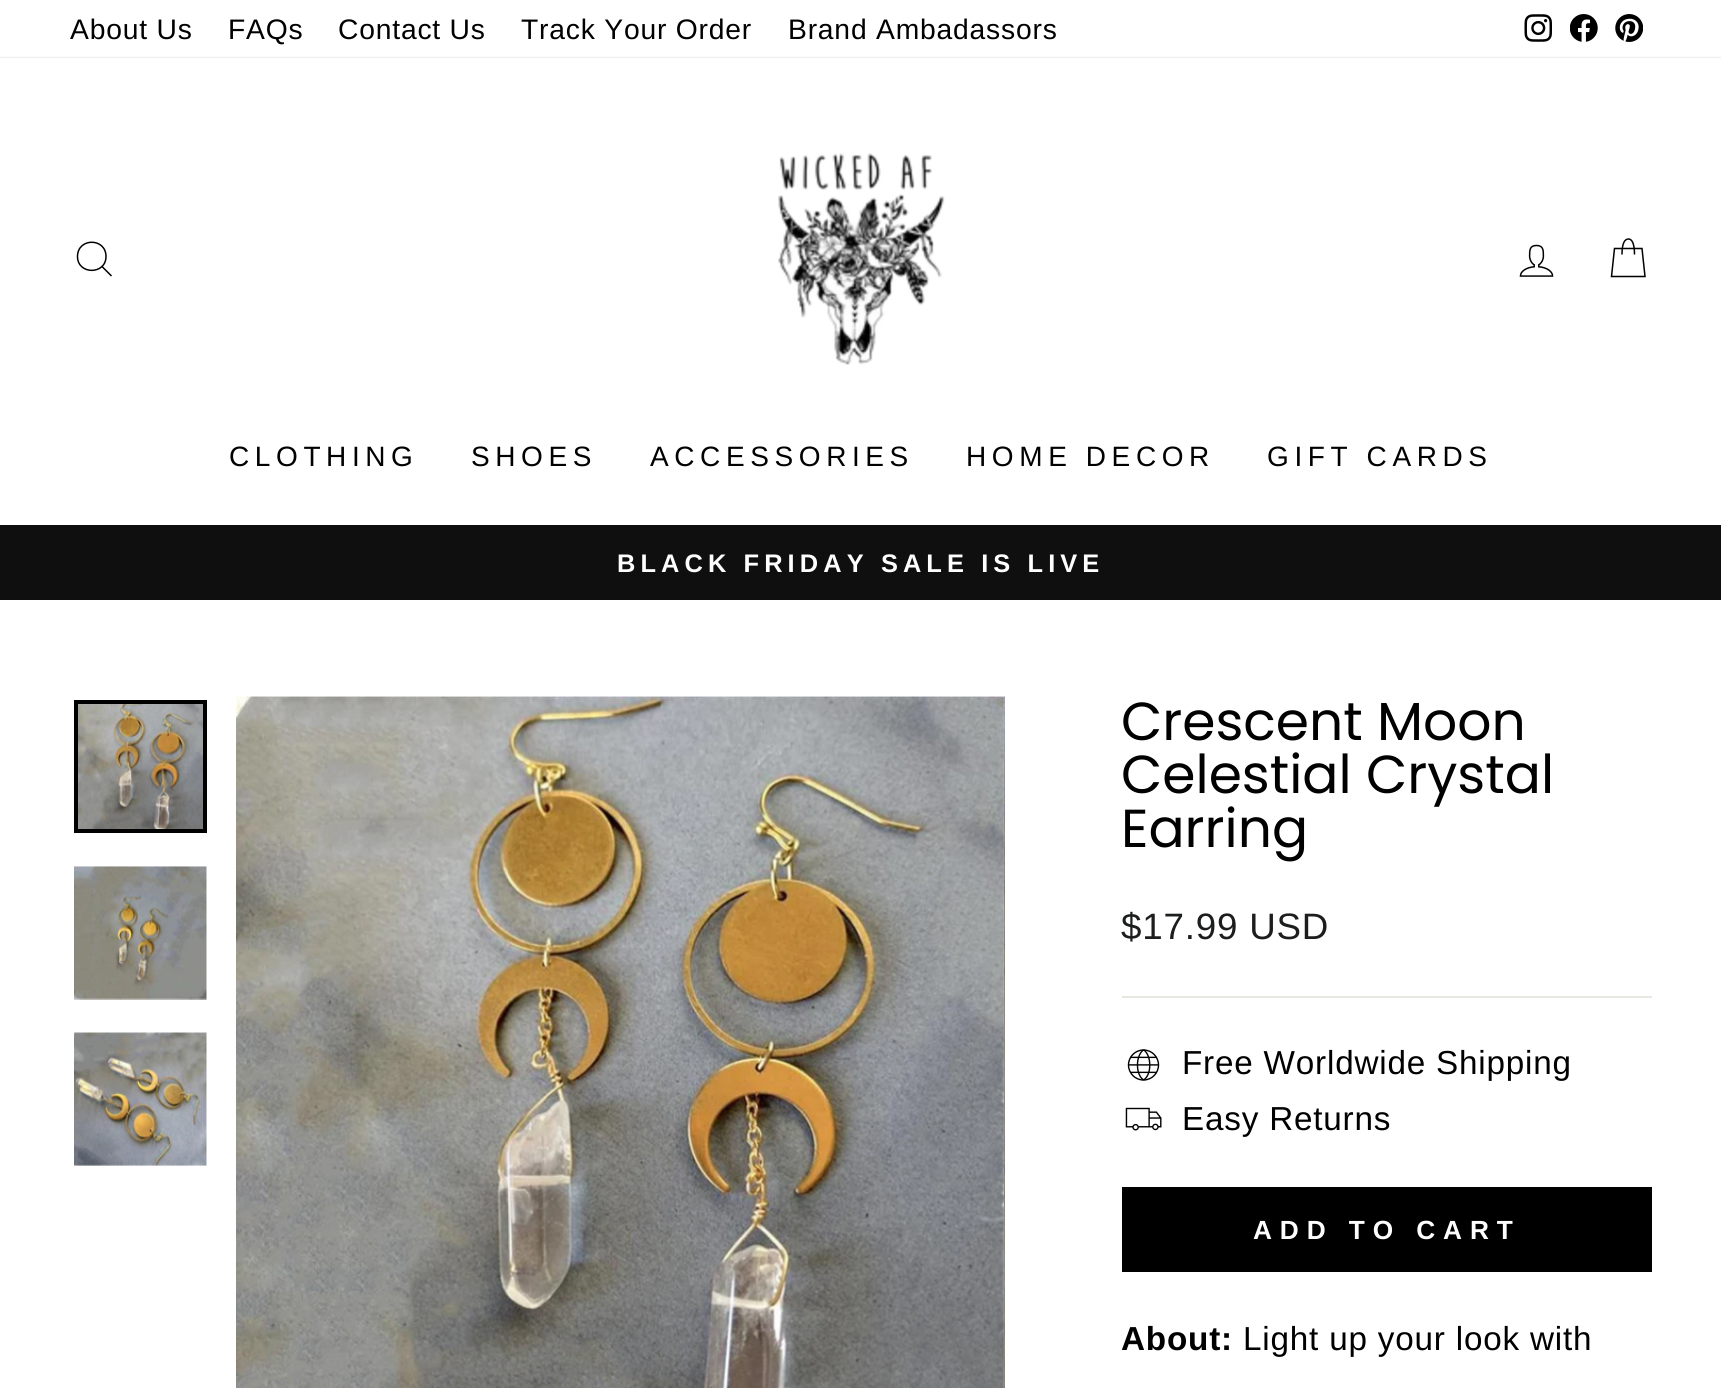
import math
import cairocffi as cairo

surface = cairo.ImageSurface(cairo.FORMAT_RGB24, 1721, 1388)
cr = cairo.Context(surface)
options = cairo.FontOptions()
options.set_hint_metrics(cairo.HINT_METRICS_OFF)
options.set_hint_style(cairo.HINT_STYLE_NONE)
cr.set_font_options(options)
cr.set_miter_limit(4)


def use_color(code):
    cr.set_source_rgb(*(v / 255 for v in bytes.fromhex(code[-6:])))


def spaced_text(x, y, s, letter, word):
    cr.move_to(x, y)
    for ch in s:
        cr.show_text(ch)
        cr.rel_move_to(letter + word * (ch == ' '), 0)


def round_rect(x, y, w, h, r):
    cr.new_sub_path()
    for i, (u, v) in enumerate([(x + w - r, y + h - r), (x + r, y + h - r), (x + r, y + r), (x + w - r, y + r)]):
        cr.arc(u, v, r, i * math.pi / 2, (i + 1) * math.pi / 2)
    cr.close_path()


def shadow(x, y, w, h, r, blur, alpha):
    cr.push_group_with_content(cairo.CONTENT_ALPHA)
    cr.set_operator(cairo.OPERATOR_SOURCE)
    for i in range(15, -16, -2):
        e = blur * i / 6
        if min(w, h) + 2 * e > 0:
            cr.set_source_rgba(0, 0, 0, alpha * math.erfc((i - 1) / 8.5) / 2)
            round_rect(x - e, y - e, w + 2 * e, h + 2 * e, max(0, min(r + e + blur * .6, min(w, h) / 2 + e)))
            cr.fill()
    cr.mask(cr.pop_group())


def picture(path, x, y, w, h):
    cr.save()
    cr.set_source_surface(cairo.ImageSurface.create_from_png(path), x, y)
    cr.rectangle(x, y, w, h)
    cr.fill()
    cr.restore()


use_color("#ffffff")
cr.paint()
cr.select_font_face("Liberation Sans")
cr.set_font_size(28.25)
use_color("#000000")
spaced_text(70, 39, "About Us", 0.8, 0)
spaced_text(228, 39, "FAQs", 0.8, 0)
spaced_text(338, 39, "Contact Us", 0.8, 0)
spaced_text(521, 39, "Track Your Order", 0.8, 0)
spaced_text(788, 39, "Brand Ambadassors", 0.8, 0)
picture("img1.png", 1524, 14, 28, 28)
picture("img2.png", 1570, 14, 28, 28)
picture("img3.png", 1615, 14, 28, 28)
use_color("#0f0f0f")
cr.rectangle(0, 525, 1721, 75)
cr.fill()
cr.save()
cr.set_fill_rule(cairo.FILL_RULE_EVEN_ODD)
cr.new_path()
cr.move_to(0, 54)
cr.line_to(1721, 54)
cr.line_to(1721, 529)
cr.line_to(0, 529)
cr.close_path()
cr.move_to(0, 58)
cr.line_to(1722, 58)
cr.line_to(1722, 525)
cr.line_to(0, 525)
cr.close_path()
cr.clip()
use_color("#000000")
shadow(0, 58, 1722, 467, 0, 1, 0.2)
cr.restore()
cr.new_path()
cr.move_to(106, 256.5)
cr.curve_to(106, 275, 77.5, 275, 77.5, 256.5)
cr.curve_to(77.5, 237.5, 106, 237.5, 106, 256.5)
cr.close_path()
cr.move_to(111.5, 276)
cr.line_to(102, 266.5)
use_color("#000000")
cr.set_line_width(1.5)
cr.stroke()
picture("img4.png", 778, 153, 167, 212)
picture("img5.png", 1519, 244, 35, 33)
cr.new_path()
cr.move_to(1622, 254.5)
cr.curve_to(1622, 242.5, 1625, 239, 1628.5, 239)
cr.curve_to(1631.5, 239, 1634.5, 242.5, 1634.5, 254.5)
cr.move_to(1614.5, 248.5)
cr.line_to(1642, 248.5)
cr.line_to(1645, 276.5)
cr.line_to(1611.5, 276.5)
cr.close_path()
cr.stroke()
cr.set_font_size(28)
spaced_text(229, 466, "CLOTHING", 5.6, 0)
spaced_text(471, 466, "SHOES", 5.6, 0)
spaced_text(650, 466, "ACCESSORIES", 5.6, 0)
spaced_text(966, 466, "HOME DECOR", 5.6, 0)
spaced_text(1267, 466, "GIFT CARDS", 5.6, 0)
cr.select_font_face("Liberation Sans", cairo.FONT_SLANT_NORMAL, cairo.FONT_WEIGHT_BOLD)
cr.set_font_size(25.4)
use_color("#ffffff")
spaced_text(617, 572, "BLACK FRIDAY SALE IS LIVE", 5.1, 0)
picture("img6.png", 78, 704, 125, 125)
cr.rectangle(76, 702, 129, 129)
use_color("#000000")
cr.set_line_width(4)
cr.stroke()
picture("img7.png", 74, 866, 133, 134)
picture("img8.png", 74, 1032, 133, 134)
picture("img9.png", 236, 696, 769, 692)
picture("img10.png", 1004, 696, 1, 692)
cr.select_font_face("Poppins")
cr.set_font_size(53.5)
cr.move_to(1121, 740)
cr.show_text("Crescent Moon")
cr.move_to(1121, 793)
cr.show_text("Celestial Crystal")
cr.move_to(1121, 847)
cr.show_text("Earring")
cr.select_font_face("Liberation Sans")
cr.set_font_size(36.75)
use_color("#1c1d1d")
spaced_text(1121, 939, "$17.99 USD", 0.8, 0)
use_color("#e8e8e1")
cr.rectangle(1122, 996, 530, 2)
cr.fill()
picture("img11.png", 1127, 1049, 33, 32)
cr.set_font_size(33.25)
use_color("#000000")
spaced_text(1182, 1074, "Free Worldwide Shipping", 0.8, 0)
picture("img12.png", 1125, 1107, 37, 24)
spaced_text(1182, 1130, "Easy Returns", 0.8, 0)
cr.rectangle(1122, 1187, 530, 85)
cr.fill()
cr.select_font_face("Liberation Sans", cairo.FONT_SLANT_NORMAL, cairo.FONT_WEIGHT_BOLD)
cr.set_font_size(26.25)
use_color("#ffffff")
spaced_text(1253, 1239, "ADD TO CART", 7.9, 0)
cr.set_font_size(33.25)
use_color("#000000")
spaced_text(1121, 1350, "About:", 0.8, 0)
cr.select_font_face("Liberation Sans")
spaced_text(1243, 1350, "Light up your look with", 0.8, 0)
surface.write_to_png("result.png")
